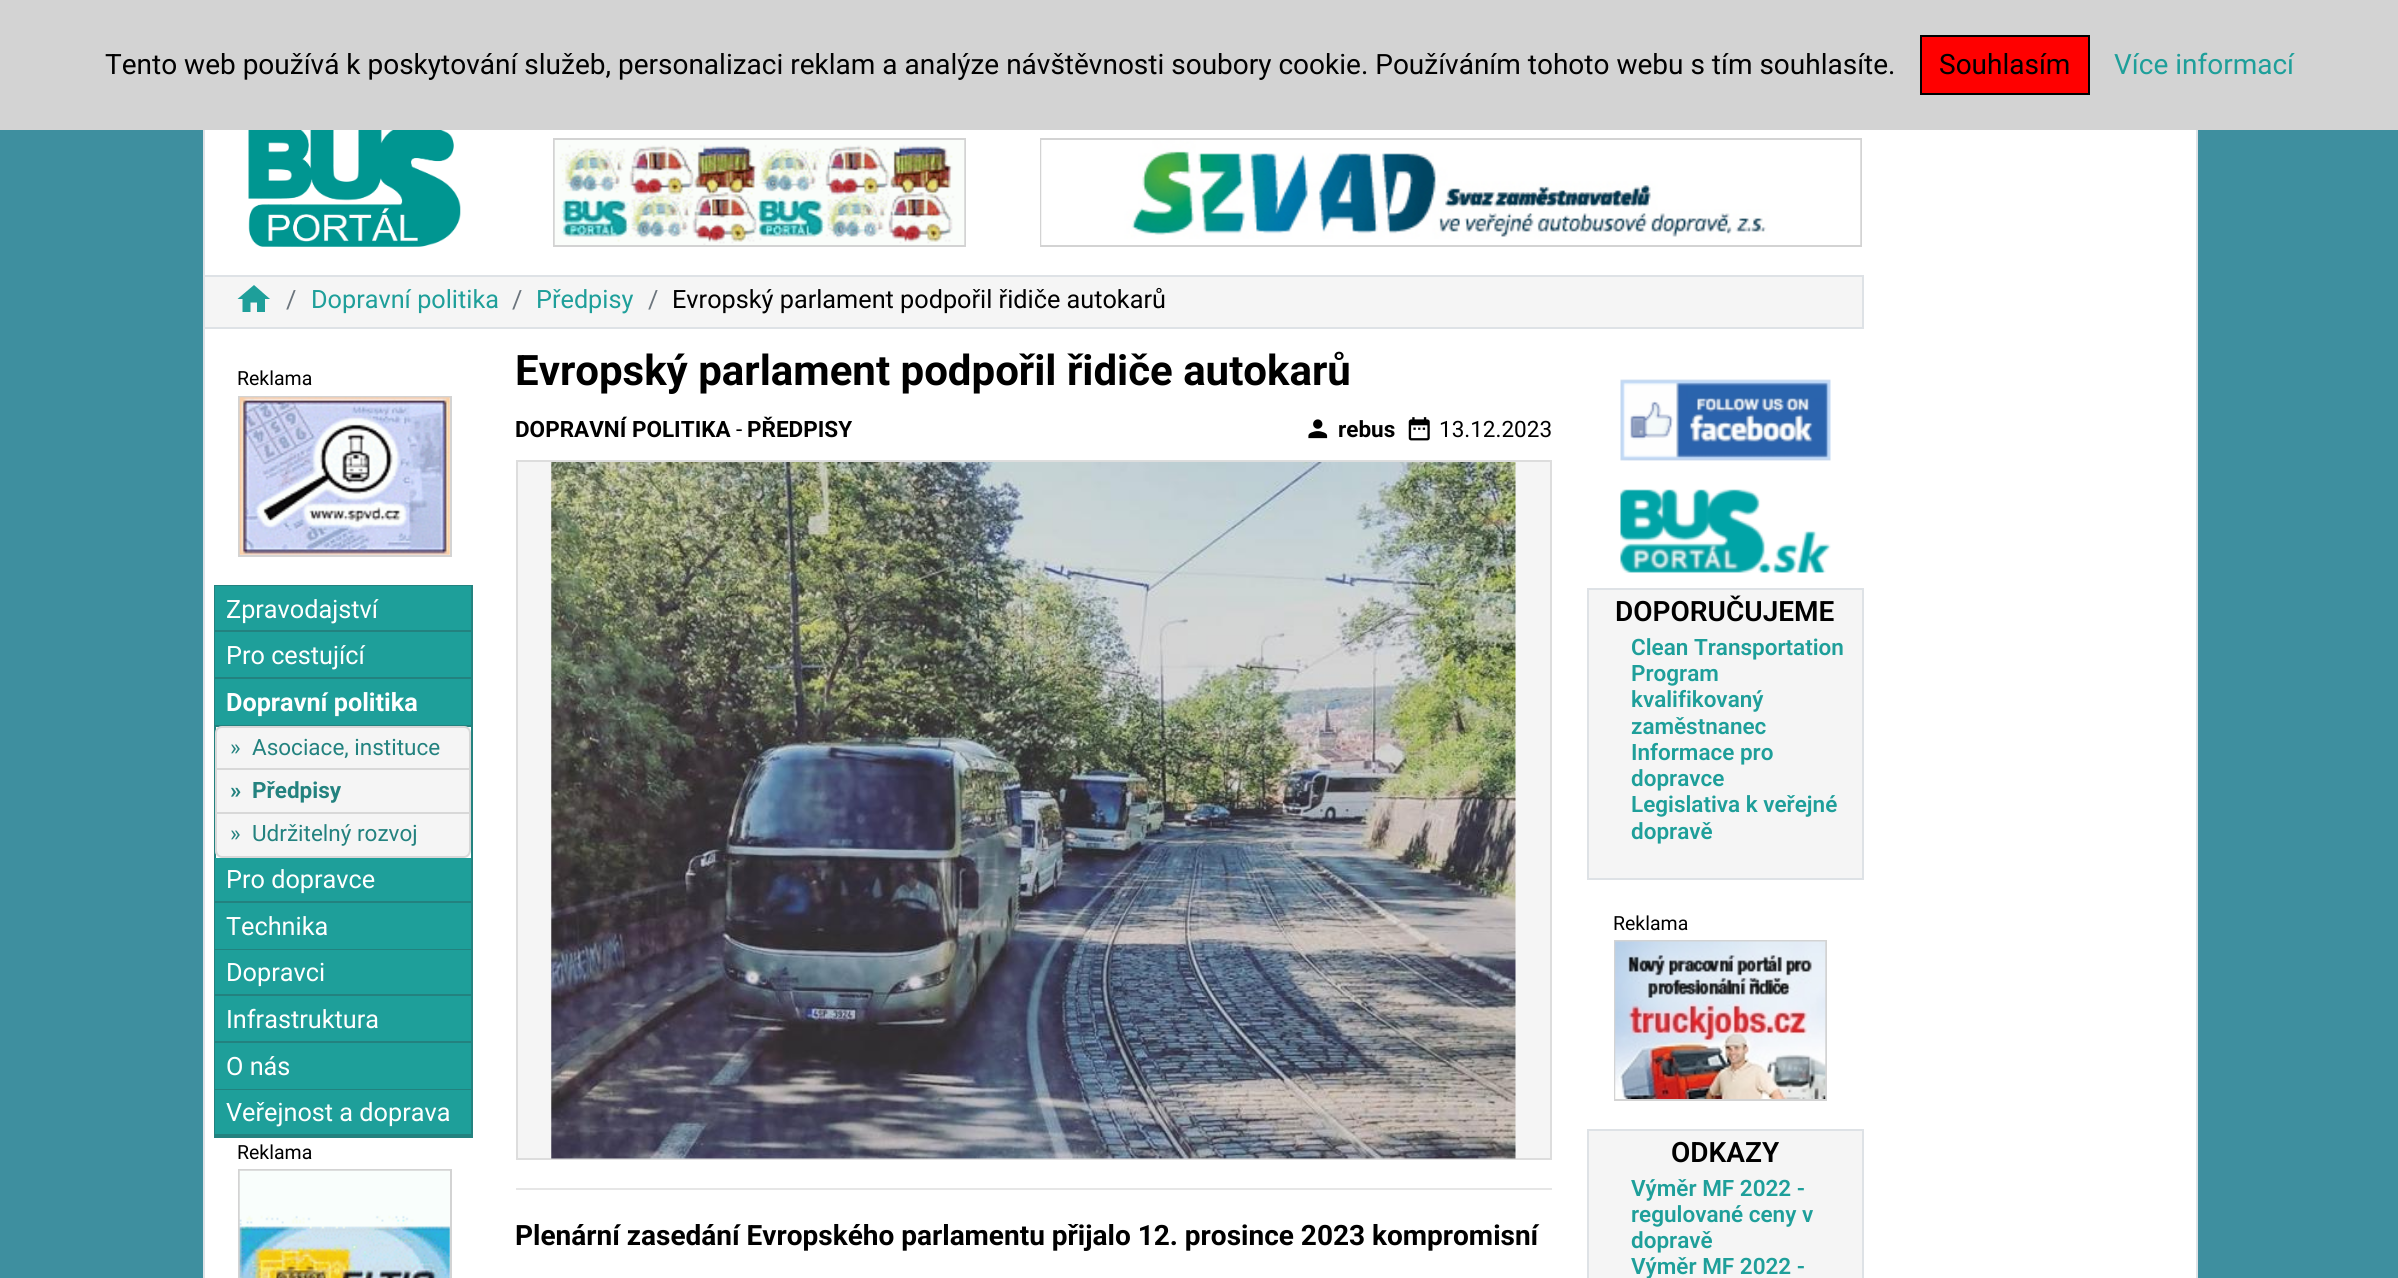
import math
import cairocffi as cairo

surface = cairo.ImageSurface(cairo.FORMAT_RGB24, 2398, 1278)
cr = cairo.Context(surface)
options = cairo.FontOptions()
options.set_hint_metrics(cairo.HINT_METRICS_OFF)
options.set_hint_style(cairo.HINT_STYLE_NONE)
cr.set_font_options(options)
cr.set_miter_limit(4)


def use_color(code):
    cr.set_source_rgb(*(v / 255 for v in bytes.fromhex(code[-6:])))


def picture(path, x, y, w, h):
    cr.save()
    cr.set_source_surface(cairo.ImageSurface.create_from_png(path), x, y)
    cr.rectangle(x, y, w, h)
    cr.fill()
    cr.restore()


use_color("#3e8f9f")
cr.paint()
use_color("#ffffff")
cr.rectangle(205, 130, 1991, 1148)
cr.fill()
cr.rectangle(204, 1, 1993, 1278)
use_color("#dee2e6")
cr.stroke()
use_color("#d3d3d3")
cr.rectangle(0, 0, 2398, 130)
cr.fill()
cr.select_font_face("Roboto")
cr.set_font_size(28)
use_color("#000000")
cr.move_to(105, 74)
cr.show_text("Tento web používá k poskytování služeb, personalizaci reklam a analýze návštěvnosti soubory cookie. Používáním tohoto webu s tím souhlasíte.")
use_color("#ff0000")
cr.rectangle(1921, 36, 168, 58)
cr.fill_preserve()
use_color("#000000")
cr.stroke()
cr.move_to(1939, 74)
cr.show_text("Souhlasím")
use_color("#1e9f9a")
cr.move_to(2114, 74)
cr.show_text("Více informací")
picture("img1.png", 248, 130, 213, 117)
cr.rectangle(554, 139, 411, 107)
use_color("#d3d3d3")
cr.stroke()
picture("img2.png", 554, 140, 411, 105)
cr.rectangle(1041, 139, 820, 107)
cr.stroke()
picture("img3.png", 1041, 140, 820, 105)
use_color("#f5f5f5")
cr.rectangle(205, 277, 1657, 50)
cr.fill()
use_color("#dee2e6")
cr.rectangle(205, 275, 1659, 2)
cr.fill()
cr.rectangle(1862, 275, 2, 54)
cr.fill()
cr.rectangle(205, 327, 1659, 2)
cr.fill()
use_color("#1e9f9a")
cr.new_path()
cr.move_to(250.5, 312)
cr.line_to(242.5, 312)
cr.line_to(242.5, 299)
cr.line_to(237.5, 299)
cr.line_to(254, 285)
cr.line_to(270, 299)
cr.line_to(265, 299)
cr.line_to(265, 312)
cr.line_to(257, 312)
cr.line_to(257, 302.5)
cr.line_to(250.5, 302.5)
cr.close_path()
cr.fill()
cr.set_font_size(25.25)
use_color("#6c757d")
cr.move_to(286, 308)
cr.show_text("/")
use_color("#1e9f9a")
cr.move_to(311, 308)
cr.show_text("Dopravní politika")
use_color("#6c757d")
cr.move_to(512, 308)
cr.show_text("/")
use_color("#1e9f9a")
cr.move_to(536, 308)
cr.show_text("Předpisy")
use_color("#6c757d")
cr.move_to(648, 308)
cr.show_text("/")
use_color("#000000")
cr.move_to(672, 308)
cr.show_text("Evropský parlament podpořil řidiče autokarů")
cr.set_font_size(19.5)
cr.move_to(237, 385)
cr.show_text("Reklama")
cr.rectangle(239, 397, 212, 159)
use_color("#d3d3d3")
cr.stroke()
picture("img4.png", 239, 397, 211, 158)
cr.rectangle(215, 586, 257, 551)
use_color("#23827f")
cr.stroke()
use_color("#1e9f9a")
cr.rectangle(215, 586, 256, 44)
cr.fill()
use_color("#23827f")
cr.rectangle(215, 630, 256, 2)
cr.fill()
cr.set_font_size(25.25)
use_color("#ffffff")
cr.move_to(226, 618)
cr.show_text("Zpravodajství")
use_color("#1e9f9a")
cr.rectangle(215, 632, 256, 45)
cr.fill()
use_color("#23827f")
cr.rectangle(215, 677, 256, 2)
cr.fill()
use_color("#ffffff")
cr.move_to(226, 664)
cr.show_text("Pro cestující")
use_color("#1e9f9a")
cr.rectangle(215, 679, 256, 46)
cr.fill()
use_color("#23827f")
cr.rectangle(215, 725, 256, 2)
cr.fill()
cr.select_font_face("Roboto", cairo.FONT_SLANT_NORMAL, cairo.FONT_WEIGHT_BOLD)
use_color("#ffffff")
cr.move_to(226, 711)
cr.show_text("Dopravní politika")
use_color("#f5f5f5")
cr.new_path()
cr.move_to(222, 726)
cr.line_to(464, 726)
cr.curve_to(468, 726, 471, 729, 471, 733)
cr.line_to(471, 770)
cr.line_to(215, 770)
cr.line_to(215, 733)
cr.curve_to(215, 729, 218, 726, 222, 726)
cr.close_path()
cr.fill()
cr.new_path()
cr.move_to(222, 727)
cr.line_to(464, 727)
cr.curve_to(467.5, 727, 470, 729.5, 470, 733)
cr.line_to(470, 769)
cr.line_to(216, 769)
cr.line_to(216, 733)
cr.curve_to(216, 729.5, 218.5, 727, 222, 727)
cr.close_path()
cr.set_source_rgba(0, 0, 0, 0.12)
cr.stroke()
cr.select_font_face("Roboto")
cr.set_font_size(22.5)
use_color("#23827f")
cr.move_to(230, 755)
cr.show_text("»")
cr.move_to(252, 755)
cr.show_text("Asociace, instituce")
use_color("#f5f5f5")
cr.rectangle(215, 770, 256, 44)
cr.fill()
use_color("#d6d6d6")
cr.new_path()
cr.move_to(471, 770)
cr.line_to(471, 814)
cr.line_to(469, 812)
cr.line_to(469, 770)
cr.close_path()
cr.fill()
cr.set_source_rgba(0, 0, 0, 0.12)
cr.new_path()
cr.move_to(471, 814)
cr.line_to(215, 814)
cr.line_to(217, 812)
cr.line_to(469, 812)
cr.close_path()
cr.fill()
cr.new_path()
cr.move_to(215, 814)
cr.line_to(215, 770)
cr.line_to(217, 770)
cr.line_to(217, 812)
cr.close_path()
cr.fill()
cr.select_font_face("Roboto", cairo.FONT_SLANT_NORMAL, cairo.FONT_WEIGHT_BOLD)
use_color("#23827f")
cr.move_to(230, 798)
cr.show_text("»")
cr.move_to(252, 798)
cr.show_text("Předpisy")
use_color("#f5f5f5")
cr.new_path()
cr.move_to(215, 814)
cr.line_to(471, 814)
cr.line_to(471, 851)
cr.curve_to(471, 855, 468, 858, 464, 858)
cr.line_to(222, 858)
cr.curve_to(218, 858, 215, 855, 215, 851)
cr.close_path()
cr.fill()
cr.set_source_rgba(0, 0, 0, 0.12)
cr.set_fill_rule(cairo.FILL_RULE_EVEN_ODD)
cr.new_path()
cr.move_to(215, 814)
cr.line_to(471, 814)
cr.line_to(471, 850)
cr.curve_to(471, 854, 468, 858, 464, 858)
cr.line_to(222, 858)
cr.curve_to(218, 858, 215, 854, 215, 850)
cr.close_path()
cr.move_to(217, 814)
cr.line_to(469, 814)
cr.line_to(469, 850)
cr.curve_to(469, 853, 467, 856, 464, 856)
cr.line_to(222, 856)
cr.curve_to(219, 856, 217, 853, 217, 850)
cr.close_path()
cr.fill()
cr.select_font_face("Roboto")
use_color("#23827f")
cr.move_to(230, 841)
cr.show_text("»")
cr.move_to(252, 841)
cr.show_text("Udržitelný rozvoj")
use_color("#1e9f9a")
cr.rectangle(215, 858, 256, 43)
cr.fill()
use_color("#23827f")
cr.rectangle(215, 901, 256, 2)
cr.fill()
cr.set_font_size(25.25)
use_color("#ffffff")
cr.move_to(226, 888)
cr.show_text("Pro dopravce")
use_color("#1e9f9a")
cr.rectangle(215, 903, 256, 46)
cr.fill()
use_color("#23827f")
cr.rectangle(215, 949, 256, 1)
cr.fill()
use_color("#ffffff")
cr.move_to(226, 935)
cr.show_text("Technika")
use_color("#1e9f9a")
cr.rectangle(215, 950, 256, 44)
cr.fill()
use_color("#23827f")
cr.rectangle(215, 994, 256, 2)
cr.fill()
use_color("#ffffff")
cr.move_to(226, 981)
cr.show_text("Dopravci")
use_color("#1e9f9a")
cr.rectangle(215, 996, 256, 45)
cr.fill()
use_color("#23827f")
cr.rectangle(215, 1041, 256, 2)
cr.fill()
use_color("#ffffff")
cr.move_to(226, 1028)
cr.show_text("Infrastruktura")
use_color("#1e9f9a")
cr.rectangle(215, 1043, 256, 46)
cr.fill()
use_color("#23827f")
cr.rectangle(215, 1089, 256, 1)
cr.fill()
use_color("#ffffff")
cr.move_to(226, 1075)
cr.show_text("O nás")
use_color("#1e9f9a")
cr.rectangle(215, 1090, 256, 44)
cr.fill()
use_color("#23827f")
cr.rectangle(215, 1134, 256, 2)
cr.fill()
use_color("#ffffff")
cr.move_to(226, 1121)
cr.show_text("Veřejnost a doprava")
cr.set_font_size(19.5)
use_color("#000000")
cr.move_to(237, 1159)
cr.show_text("Reklama")
cr.rectangle(239, 1170, 212, 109)
use_color("#d3d3d3")
cr.stroke()
picture("img5.png", 239, 1170, 211, 108)
cr.select_font_face("Roboto", cairo.FONT_SLANT_NORMAL, cairo.FONT_WEIGHT_BOLD)
cr.set_font_size(42)
use_color("#000000")
cr.move_to(515, 385)
cr.show_text("Evropský parlament podpořil řidiče autokarů")
cr.set_font_size(22.5)
cr.move_to(515, 437)
cr.show_text("DOPRAVNÍ POLITIKA")
cr.select_font_face("Roboto")
cr.move_to(736, 437)
cr.show_text("-")
cr.select_font_face("Roboto", cairo.FONT_SLANT_NORMAL, cairo.FONT_WEIGHT_BOLD)
cr.move_to(747, 437)
cr.show_text("PŘEDPISY")
picture("img6.png", 1308, 419, 20, 20)
cr.move_to(1338, 437)
cr.show_text("rebus")
picture("img7.png", 1408, 417, 22, 24)
cr.select_font_face("Roboto")
cr.move_to(1439, 437)
cr.show_text("13.12.2023")
use_color("#f5f5f5")
cr.rectangle(517, 461, 1034, 698)
cr.fill_preserve()
use_color("#dddddd")
cr.stroke()
picture("img8.png", 551, 462, 965, 697)
use_color("#e6e6e6")
cr.rectangle(516, 1188, 1036, 2)
cr.fill()
cr.select_font_face("Roboto", cairo.FONT_SLANT_NORMAL, cairo.FONT_WEIGHT_BOLD)
cr.set_font_size(28)
use_color("#000000")
cr.move_to(515, 1245)
cr.show_text("Plenární zasedání Evropského parlamentu přijalo 12. prosince 2023 kompromisní")
picture("img9.png", 1620, 379, 211, 82)
picture("img10.png", 1620, 489, 211, 84)
use_color("#f5f5f5")
cr.rectangle(1588, 589, 275, 290)
cr.fill_preserve()
use_color("#dee2e6")
cr.stroke()
cr.select_font_face("Roboto SemiBold")
use_color("#000000")
cr.move_to(1615, 621)
cr.show_text("DOPORUČUJEME")
cr.set_font_size(22.5)
use_color("#1e9f9a")
cr.move_to(1631, 655)
cr.show_text("Clean Transportation")
cr.move_to(1631, 681)
cr.show_text("Program")
cr.move_to(1631, 707)
cr.show_text("kvalifikovaný")
cr.move_to(1631, 734)
cr.show_text("zaměstnanec")
cr.move_to(1631, 760)
cr.show_text("Informace pro")
cr.move_to(1631, 786)
cr.show_text("dopravce")
cr.move_to(1631, 812)
cr.show_text("Legislativa k veřejné")
cr.move_to(1631, 839)
cr.show_text("dopravě")
cr.select_font_face("Roboto")
cr.set_font_size(19.5)
use_color("#000000")
cr.move_to(1613, 930)
cr.show_text("Reklama")
cr.rectangle(1615, 941, 211, 159)
use_color("#d3d3d3")
cr.stroke()
picture("img11.png", 1615, 941, 211, 158)
use_color("#f5f5f5")
cr.rectangle(1588, 1130, 275, 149)
cr.fill_preserve()
use_color("#dee2e6")
cr.stroke()
cr.select_font_face("Roboto SemiBold")
cr.set_font_size(28)
use_color("#000000")
cr.move_to(1671, 1162)
cr.show_text("ODKAZY")
cr.set_font_size(22.5)
use_color("#1e9f9a")
cr.move_to(1631, 1196)
cr.show_text("Výměr MF 2022 -")
cr.move_to(1631, 1222)
cr.show_text("regulované ceny v")
cr.move_to(1631, 1248)
cr.show_text("dopravě")
cr.move_to(1631, 1274)
cr.show_text("Výměr MF 2022 -")
surface.write_to_png("result.png")
